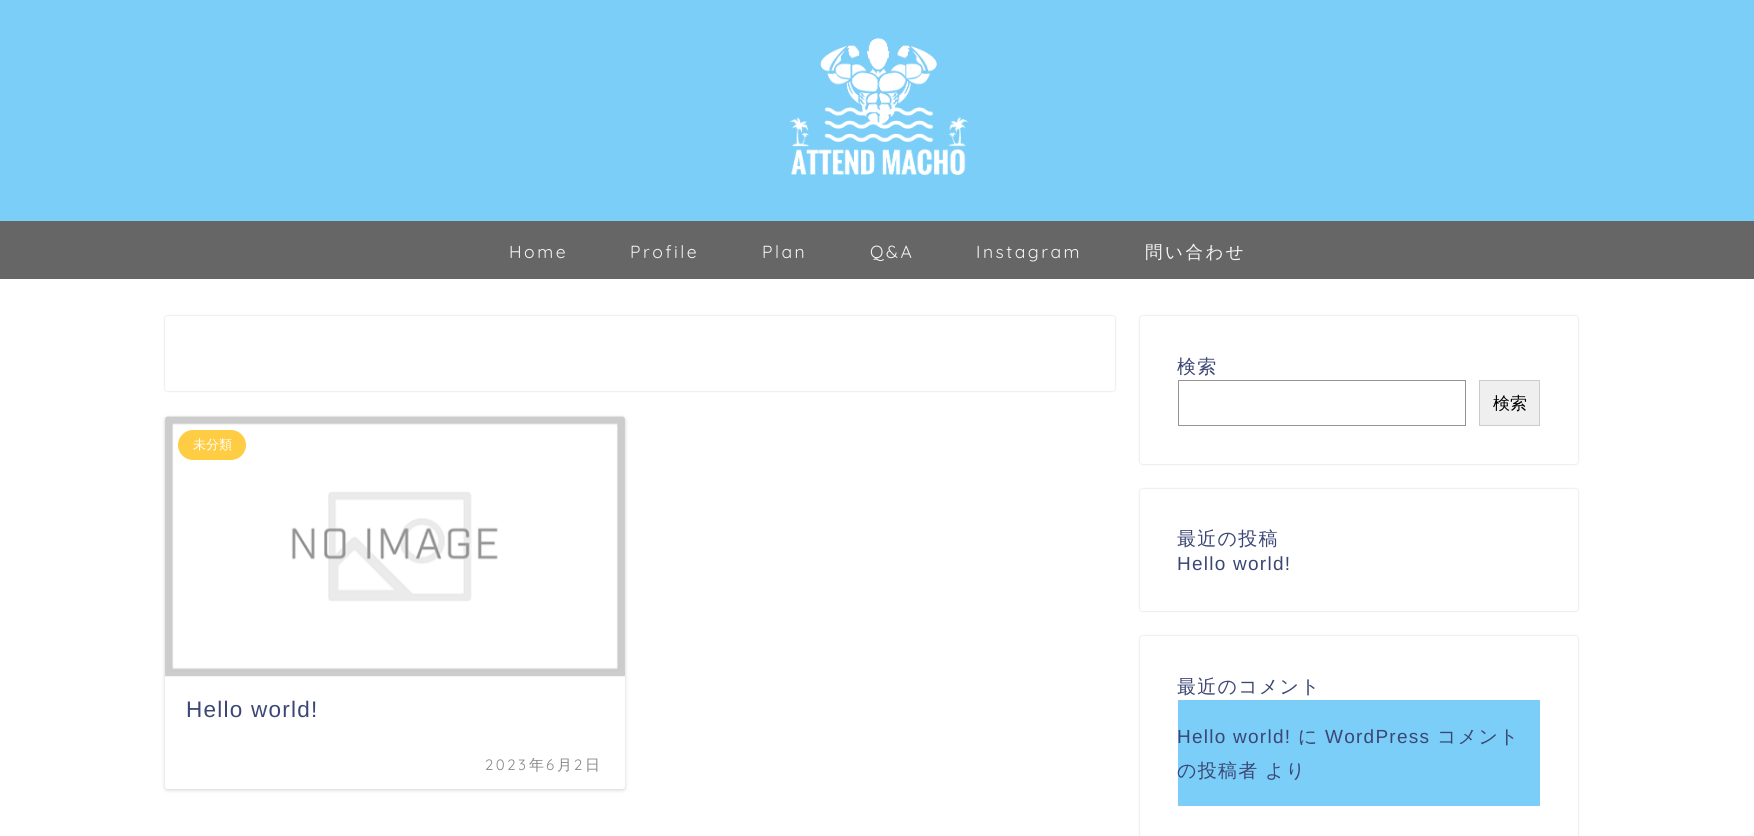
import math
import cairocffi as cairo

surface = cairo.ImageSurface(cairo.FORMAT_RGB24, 1754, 836)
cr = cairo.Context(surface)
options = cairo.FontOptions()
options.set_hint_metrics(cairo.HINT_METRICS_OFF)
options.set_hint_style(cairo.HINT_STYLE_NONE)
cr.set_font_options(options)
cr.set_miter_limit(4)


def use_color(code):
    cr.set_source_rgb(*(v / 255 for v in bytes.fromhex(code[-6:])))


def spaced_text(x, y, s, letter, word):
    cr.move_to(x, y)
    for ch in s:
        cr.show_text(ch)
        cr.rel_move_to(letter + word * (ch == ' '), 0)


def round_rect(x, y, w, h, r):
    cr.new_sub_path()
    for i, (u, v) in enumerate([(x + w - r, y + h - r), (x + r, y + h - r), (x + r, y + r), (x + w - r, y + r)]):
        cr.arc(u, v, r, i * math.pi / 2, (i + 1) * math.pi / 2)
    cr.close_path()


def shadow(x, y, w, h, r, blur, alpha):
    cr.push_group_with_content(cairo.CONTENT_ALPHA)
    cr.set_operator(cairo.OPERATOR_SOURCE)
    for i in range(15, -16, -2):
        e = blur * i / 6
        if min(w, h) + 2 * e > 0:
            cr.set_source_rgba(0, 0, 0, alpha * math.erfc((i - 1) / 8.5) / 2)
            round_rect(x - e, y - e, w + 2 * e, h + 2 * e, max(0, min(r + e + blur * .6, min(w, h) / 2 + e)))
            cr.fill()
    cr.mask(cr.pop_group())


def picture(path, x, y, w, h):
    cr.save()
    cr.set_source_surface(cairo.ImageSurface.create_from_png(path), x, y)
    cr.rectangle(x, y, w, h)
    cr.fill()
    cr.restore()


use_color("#ffffff")
cr.paint()
use_color("#7bcef7")
cr.rectangle(0, 0, 1754, 221)
cr.fill()
picture("img1.png", 789, 38, 179, 137)
use_color("#666666")
cr.rectangle(0, 221, 1754, 58)
cr.fill()
cr.select_font_face("Quicksand Light")
cr.set_font_size(17.5)
use_color("#f4f4f4")
spaced_text(509, 258, "Home", 2.5, 0)
spaced_text(630, 258, "Profile", 2.5, 0)
spaced_text(762, 258, "Plan", 2.5, 0)
spaced_text(870, 258, "Q&A", 2.5, 0)
spaced_text(976, 258, "Instagram", 2.5, 0)
cr.select_font_face("WenQuanYi Zen Hei Medium")
spaced_text(1145, 258, "問い合わせ", 2.5, 0)
use_color("#000000")
shadow(165, 316, 950, 75, 2.5, 1, 0.18)
use_color("#ffffff")
round_rect(165, 316, 950, 75, 2.5)
cr.fill()
use_color("#000000")
shadow(165, 418, 460, 372, 2.5, 2, 0.18)
use_color("#ffffff")
round_rect(165, 416, 460, 373, 2.5)
cr.fill()
picture("img2.png", 165, 416, 460, 261)
use_color("#ffcd44")
round_rect(178, 430, 68, 30, 15)
cr.fill()
cr.set_font_size(13)
use_color("#ffffff")
cr.move_to(193, 449)
cr.show_text("未分類")
cr.select_font_face("Liberation Sans")
cr.set_font_size(22.5)
use_color("#3b4675")
spaced_text(186, 717, "Hello world!", 1.25, 0)
cr.select_font_face("Quicksand Light")
cr.set_font_size(15)
use_color("#888888")
spaced_text(485, 770, "2023", 2.5, 0)
cr.select_font_face("WenQuanYi Zen Hei Medium")
spaced_text(529, 770, "年", 2.5, 0)
cr.select_font_face("Quicksand Light")
spaced_text(546, 770, "6", 2.5, 0)
cr.select_font_face("WenQuanYi Zen Hei Medium")
spaced_text(557, 770, "月", 2.5, 0)
cr.select_font_face("Quicksand Light")
spaced_text(574, 770, "2", 2.5, 0)
cr.select_font_face("WenQuanYi Zen Hei Medium")
spaced_text(585, 770, "日", 2.5, 0)
use_color("#000000")
shadow(1140, 316, 438, 148, 2.5, 1, 0.18)
use_color("#ffffff")
round_rect(1140, 316, 438, 148, 2.5)
cr.fill()
cr.set_font_size(19)
use_color("#3b4675")
spaced_text(1177, 373, "検索", 1.25, 0)
cr.rectangle(1178.5, 380.5, 287, 45)
use_color("#949494")
cr.set_line_width(1)
cr.stroke()
use_color("#efefef")
cr.rectangle(1479.5, 380.5, 60, 45)
cr.fill_preserve()
use_color("#cccccc")
cr.stroke()
cr.set_font_size(17)
use_color("#000000")
cr.move_to(1493, 409)
cr.show_text("検索")
use_color("#000000")
shadow(1140, 489, 438, 122, 2.5, 1, 0.18)
use_color("#ffffff")
round_rect(1140, 489, 438, 122, 2.5)
cr.fill()
cr.set_font_size(19)
use_color("#3b4675")
spaced_text(1177, 545, "最近の投稿", 1.25, 0)
cr.select_font_face("Liberation Sans")
spaced_text(1177, 570, "Hello world!", 1.25, 0)
use_color("#000000")
shadow(1140, 636, 438, 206, 2.5, 1, 0.18)
use_color("#ffffff")
round_rect(1140, 636, 438, 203, 2.5)
cr.fill()
cr.select_font_face("WenQuanYi Zen Hei Medium")
use_color("#3b4675")
spaced_text(1177, 693, "最近のコメント", 1.25, 0)
use_color("#7bcef7")
cr.rectangle(1178, 700, 362, 106)
cr.fill()
cr.select_font_face("Liberation Sans")
use_color("#3b4675")
spaced_text(1177, 743, "Hello world!", 1.25, 0)
cr.select_font_face("WenQuanYi Zen Hei Medium")
spaced_text(1298, 743, "に", 1.25, 0)
cr.select_font_face("Liberation Sans")
spaced_text(1325, 743, "WordPress", 1.25, 0)
cr.select_font_face("WenQuanYi Zen Hei Medium")
spaced_text(1437, 743, "コメント", 1.25, 0)
spaced_text(1177, 777, "の投稿者", 1.25, 0)
spaced_text(1265, 777, "より", 1.25, 0)
surface.write_to_png("result.png")
